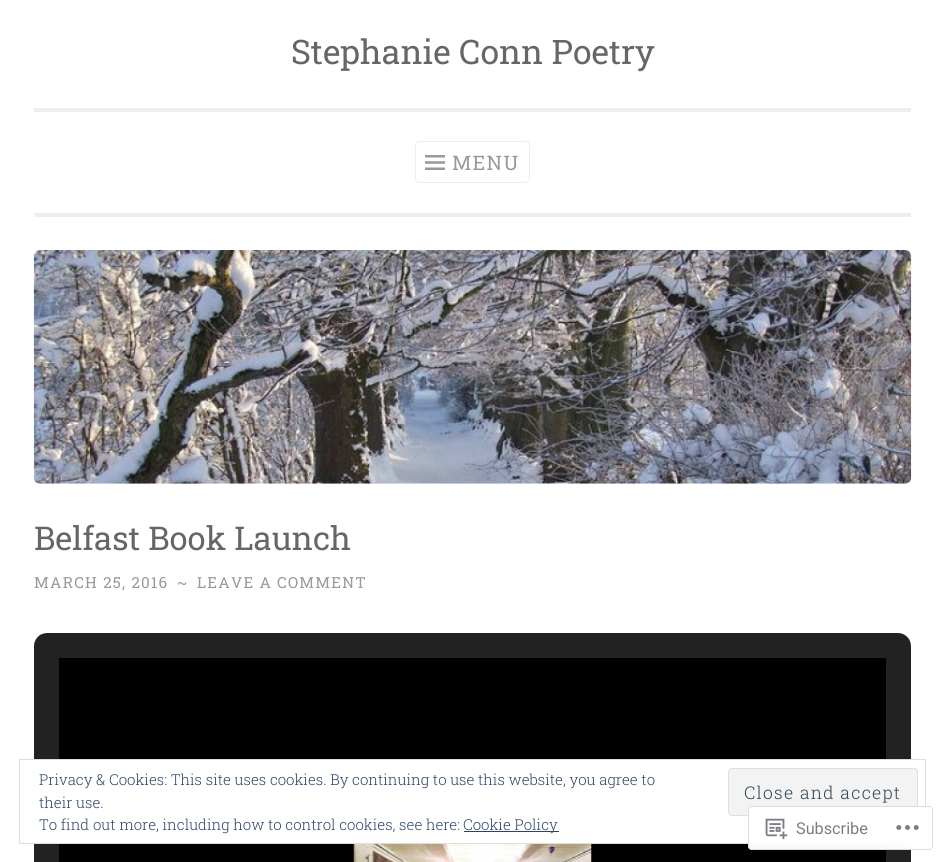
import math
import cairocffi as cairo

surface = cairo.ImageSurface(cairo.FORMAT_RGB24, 945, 862)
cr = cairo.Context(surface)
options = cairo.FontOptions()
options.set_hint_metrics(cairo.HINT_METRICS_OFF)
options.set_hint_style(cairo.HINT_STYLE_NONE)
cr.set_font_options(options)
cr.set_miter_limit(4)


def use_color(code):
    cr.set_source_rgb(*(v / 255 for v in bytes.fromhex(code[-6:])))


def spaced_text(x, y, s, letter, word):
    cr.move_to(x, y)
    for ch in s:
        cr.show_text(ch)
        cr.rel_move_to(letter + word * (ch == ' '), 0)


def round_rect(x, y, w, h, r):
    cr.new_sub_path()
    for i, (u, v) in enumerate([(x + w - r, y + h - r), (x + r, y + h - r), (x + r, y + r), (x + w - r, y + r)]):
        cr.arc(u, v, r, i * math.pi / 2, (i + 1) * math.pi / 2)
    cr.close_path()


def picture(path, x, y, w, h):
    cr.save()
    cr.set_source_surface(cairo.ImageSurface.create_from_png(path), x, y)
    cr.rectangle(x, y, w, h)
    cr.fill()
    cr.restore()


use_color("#ffffff")
cr.paint()
use_color("#eeeeee")
cr.rectangle(34, 213, 877, 4)
cr.fill()
cr.select_font_face("Roboto Slab")
cr.set_font_size(33.75)
use_color("#666666")
cr.move_to(291, 64)
cr.show_text("Stephanie Conn Poetry")
use_color("#eeeeee")
cr.rectangle(34, 108, 877, 4)
cr.fill()
round_rect(415.5, 141.5, 114, 41, 3.5)
cr.set_line_width(1)
cr.stroke()
picture("img1.png", 425, 155, 20, 15)
cr.set_font_size(20)
use_color("#999999")
spaced_text(452, 170, "MENU", 1.25, 0)
picture("img2.png", 33, 250, 879, 234)
cr.set_font_size(32.75)
use_color("#666666")
cr.move_to(34, 550)
cr.show_text("Belfast Book Launch")
cr.set_font_size(15.25)
use_color("#999999")
spaced_text(34, 588, "MARCH 25, 2016", 1.25, 0)
spaced_text(177, 588, "~", 1.25, 0)
spaced_text(197, 588, "LEAVE A COMMENT", 1.25, 0)
round_rect(46.5, 645.5, 852, 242, 0.5)
use_color("#222222")
cr.set_line_width(25)
cr.stroke()
use_color("#000000")
cr.rectangle(59, 658, 827, 204)
cr.fill()
picture("img3.png", 353, 844, 239, 18)
use_color("#ffffff")
cr.rectangle(34, 760, 877, 83)
cr.fill()
cr.rectangle(19.5, 759.5, 906, 84)
use_color("#dedede")
cr.set_line_width(1)
cr.stroke()
cr.select_font_face("Roboto Slab Light")
cr.set_font_size(15)
use_color("#2e4467")
cr.move_to(39, 785)
cr.show_text("Privacy & Cookies: This site uses cookies. By continuing to use this website, you agree to")
cr.move_to(39, 808)
cr.show_text("their use.")
use_color("#f3f3f3")
round_rect(728.5, 768.5, 189, 47, 3.5)
cr.fill_preserve()
use_color("#dedede")
cr.stroke()
cr.set_font_size(17.5)
use_color("#2e4453")
spaced_text(744, 799, "Close and accept", 1.25, 0)
cr.set_font_size(15)
use_color("#2e4467")
cr.move_to(39, 830)
cr.show_text("To find out more, including how to control cookies, see here:")
cr.rectangle(464, 831, 95, 1)
cr.fill()
cr.move_to(463, 830)
cr.show_text("Cookie Policy")
cr.set_source_rgba(1, 1, 1, 0.98)
round_rect(748, 806, 185, 44, 4)
cr.fill()
round_rect(748.5, 806.5, 184, 43, 3.5)
cr.set_source_rgba(0.863, 0.863, 0.871, 0.98)
cr.stroke()
picture("img4.png", 765, 818, 23, 22)
cr.select_font_face("Roboto")
cr.set_font_size(16.25)
use_color("#7b7f85")
cr.move_to(796, 834)
cr.show_text("Subscribe")
picture("img5.png", 896, 825, 23, 5)
surface.write_to_png("result.png")
